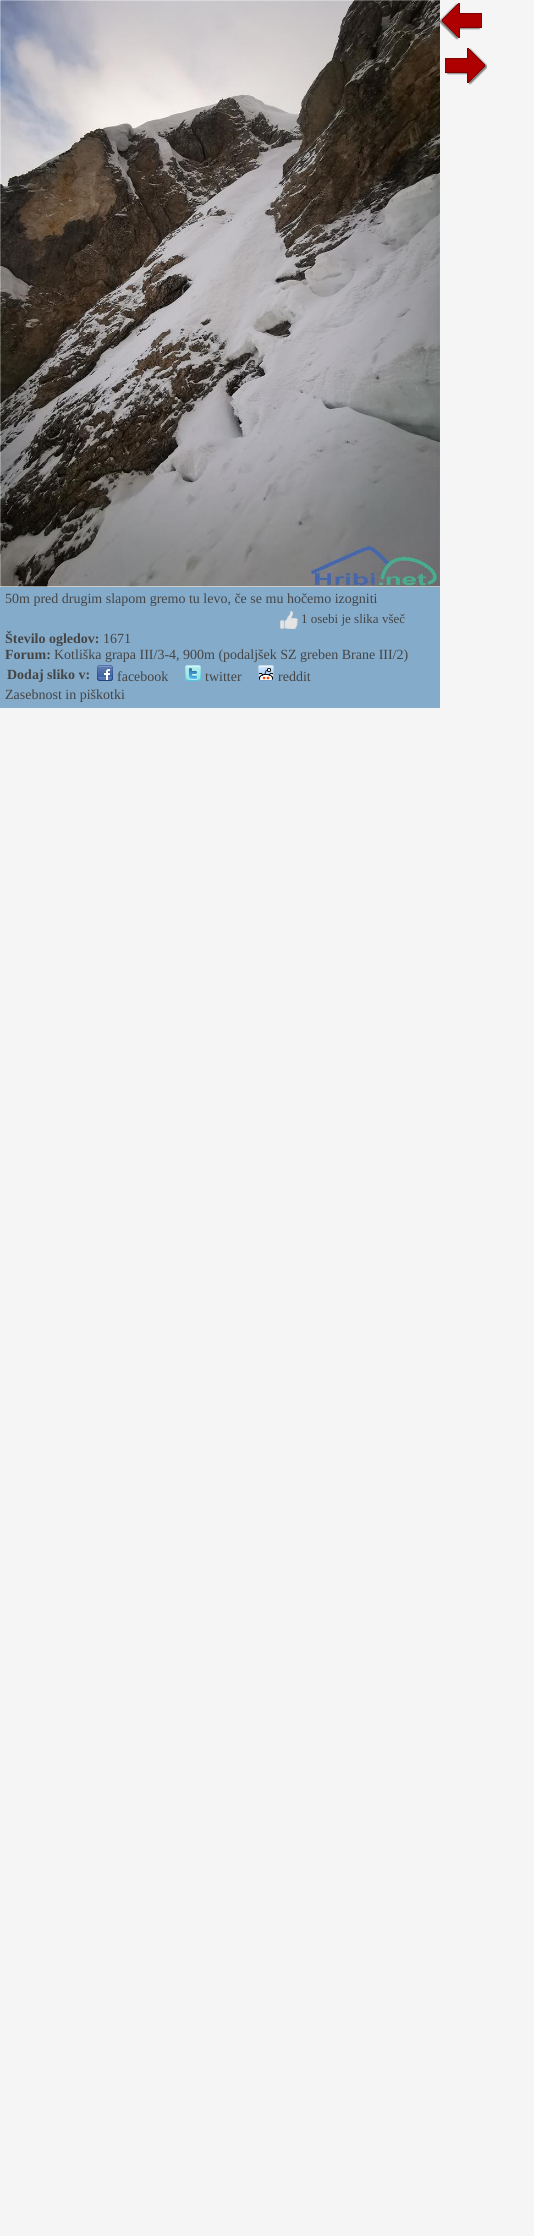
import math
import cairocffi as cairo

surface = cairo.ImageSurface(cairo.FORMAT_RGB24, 534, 2236)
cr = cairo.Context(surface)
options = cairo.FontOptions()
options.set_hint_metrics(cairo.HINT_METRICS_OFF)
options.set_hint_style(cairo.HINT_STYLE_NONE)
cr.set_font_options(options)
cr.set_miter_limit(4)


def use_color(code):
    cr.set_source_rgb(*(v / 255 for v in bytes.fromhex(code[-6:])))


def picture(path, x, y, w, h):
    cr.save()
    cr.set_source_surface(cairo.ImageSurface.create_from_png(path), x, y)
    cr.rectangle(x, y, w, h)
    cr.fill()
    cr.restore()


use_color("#f5f5f5")
cr.paint()
picture("img1.png", 440, 3, 42, 37)
picture("img2.png", 445, 48, 42, 37)
use_color("#85abca")
cr.rectangle(0, 587, 440, 121)
cr.fill()
picture("img3.png", 0, 0, 440, 587)
cr.select_font_face("Liberation Serif")
cr.set_font_size(14)
use_color("#444444")
cr.move_to(5, 603)
cr.show_text("50m pred drugim slapom gremo tu levo, če se mu hočemo izogniti")
picture("img4.png", 280, 611, 18, 18)
cr.set_font_size(13)
cr.move_to(301, 623)
cr.show_text("1 osebi je slika všeč")
cr.select_font_face("Liberation Serif", cairo.FONT_SLANT_NORMAL, cairo.FONT_WEIGHT_BOLD)
cr.set_font_size(14)
cr.move_to(5, 643)
cr.show_text("Število ogledov:")
cr.select_font_face("Liberation Serif")
cr.move_to(103, 643)
cr.show_text("1671")
cr.select_font_face("Liberation Serif", cairo.FONT_SLANT_NORMAL, cairo.FONT_WEIGHT_BOLD)
cr.move_to(5, 659)
cr.show_text("Forum:")
cr.select_font_face("Liberation Serif")
cr.move_to(54, 659)
cr.show_text("Kotliška grapa III/3-4, 900m (podaljšek SZ greben Brane III/2)")
cr.select_font_face("Liberation Serif", cairo.FONT_SLANT_NORMAL, cairo.FONT_WEIGHT_BOLD)
cr.move_to(7, 679)
cr.show_text("Dodaj sliko v:")
picture("img5.png", 97, 665, 16, 16)
cr.select_font_face("Liberation Serif")
cr.move_to(117, 681)
cr.show_text("facebook")
picture("img6.png", 185, 665, 16, 16)
cr.move_to(205, 681)
cr.show_text("twitter")
picture("img7.png", 258, 665, 16, 16)
cr.move_to(278, 681)
cr.show_text("reddit")
cr.move_to(5, 699)
cr.show_text("Zasebnost in piškotki")
surface.write_to_png("result.png")
